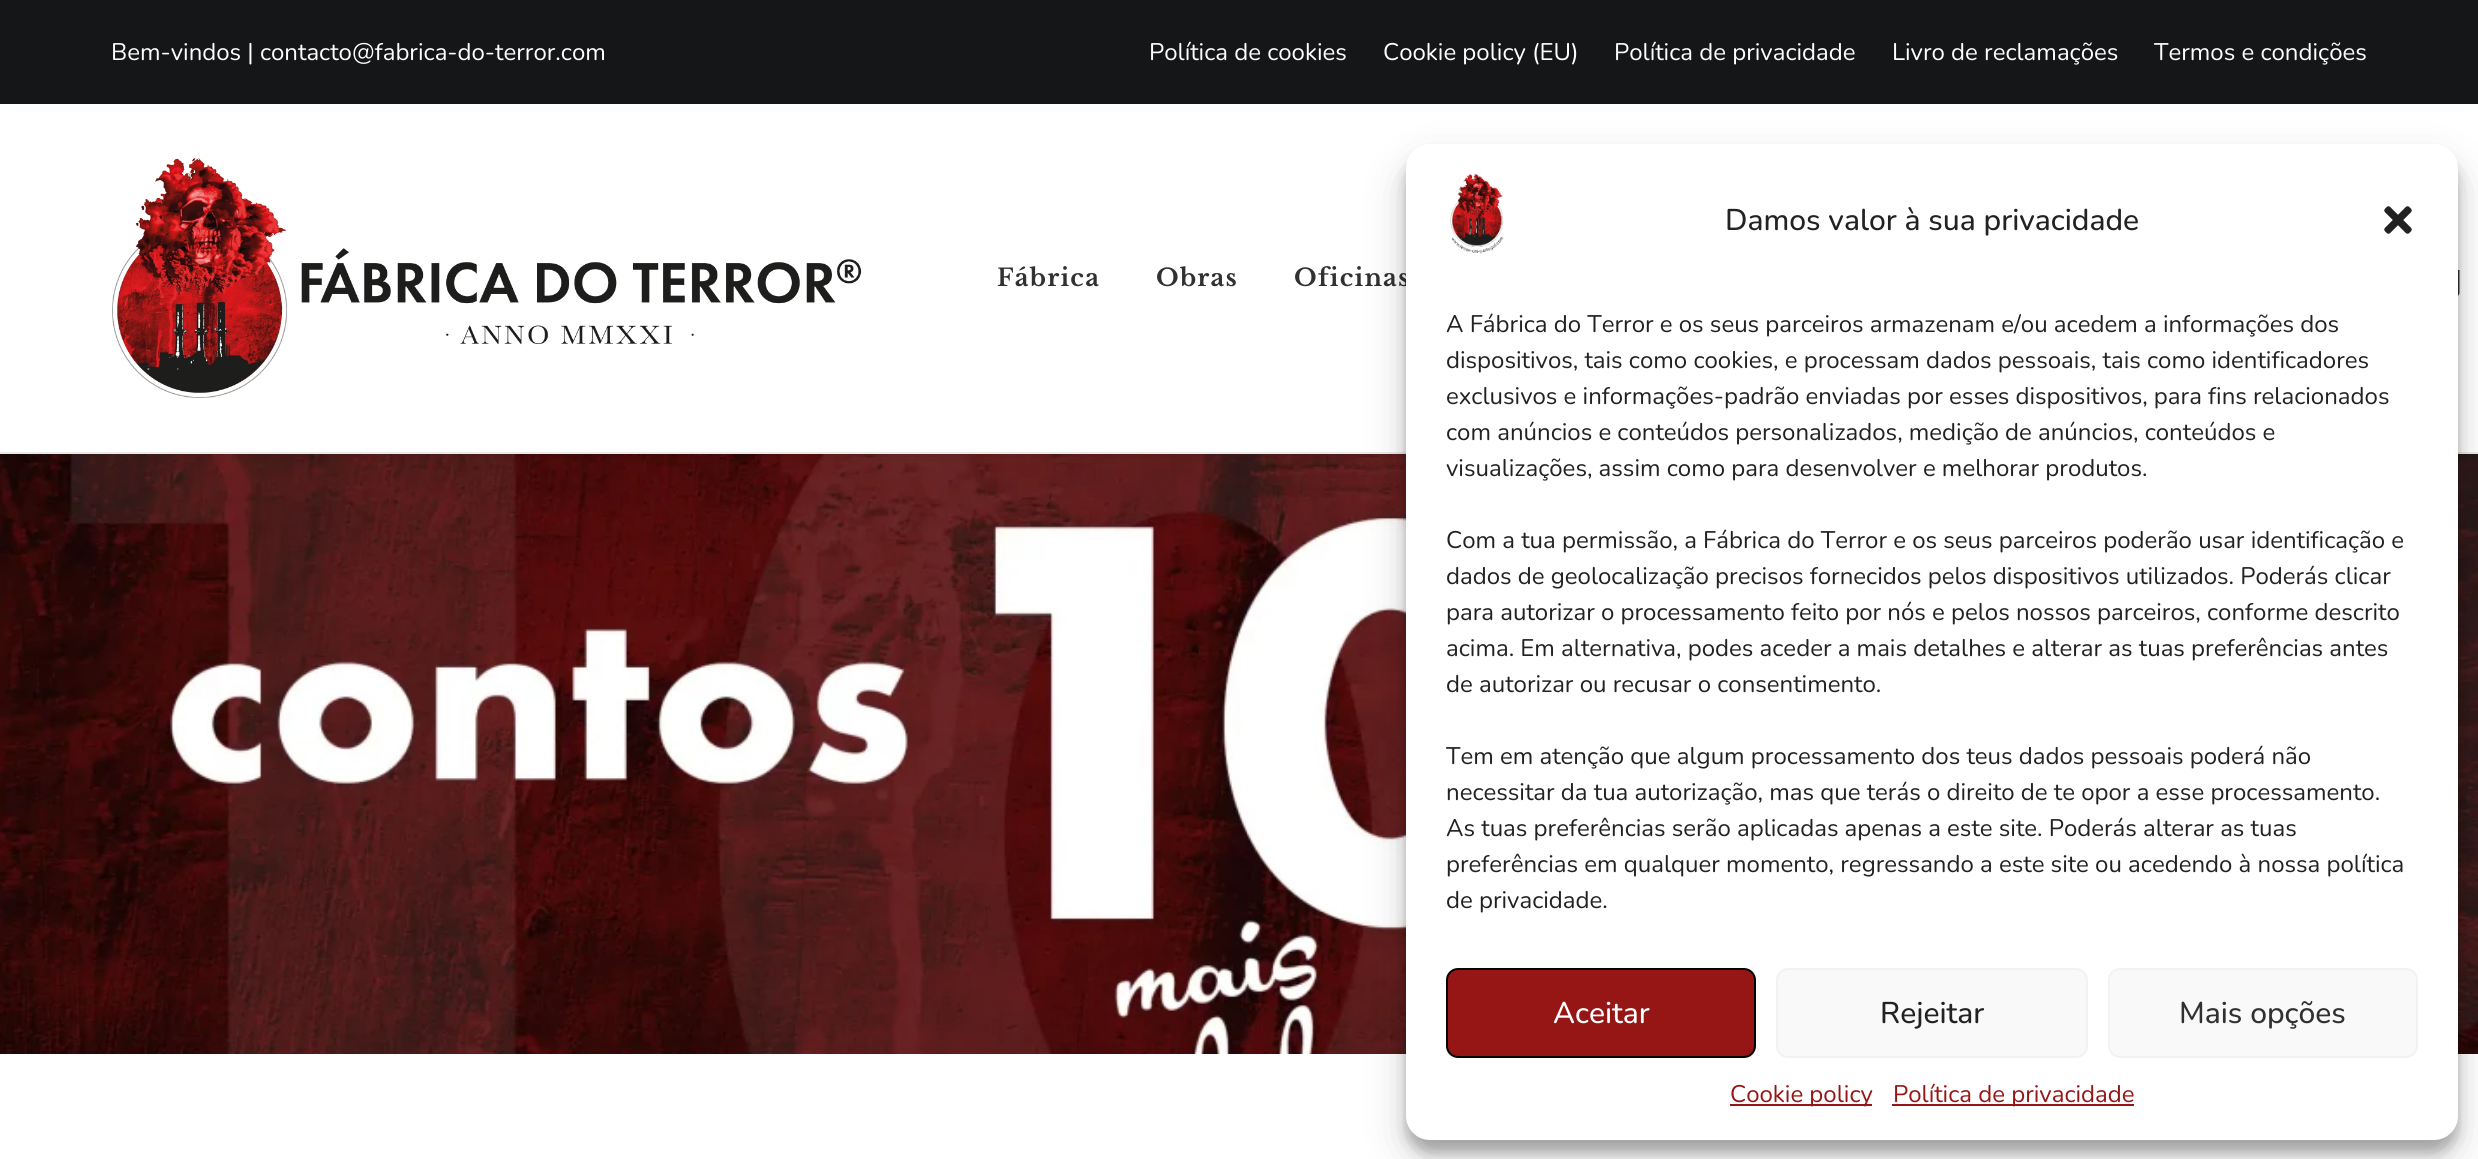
import math
import cairocffi as cairo

surface = cairo.ImageSurface(cairo.FORMAT_RGB24, 2478, 1159)
cr = cairo.Context(surface)
options = cairo.FontOptions()
options.set_hint_metrics(cairo.HINT_METRICS_OFF)
options.set_hint_style(cairo.HINT_STYLE_NONE)
cr.set_font_options(options)
cr.set_miter_limit(4)


def use_color(code):
    cr.set_source_rgb(*(v / 255 for v in bytes.fromhex(code[-6:])))


def spaced_text(x, y, s, letter, word):
    cr.move_to(x, y)
    for ch in s:
        cr.show_text(ch)
        cr.rel_move_to(letter + word * (ch == ' '), 0)


def round_rect(x, y, w, h, r):
    cr.new_sub_path()
    for i, (u, v) in enumerate([(x + w - r, y + h - r), (x + r, y + h - r), (x + r, y + r), (x + w - r, y + r)]):
        cr.arc(u, v, r, i * math.pi / 2, (i + 1) * math.pi / 2)
    cr.close_path()


def shadow(x, y, w, h, r, blur, alpha):
    cr.push_group_with_content(cairo.CONTENT_ALPHA)
    cr.set_operator(cairo.OPERATOR_SOURCE)
    for i in range(15, -16, -2):
        e = blur * i / 6
        if min(w, h) + 2 * e > 0:
            cr.set_source_rgba(0, 0, 0, alpha * math.erfc((i - 1) / 8.5) / 2)
            round_rect(x - e, y - e, w + 2 * e, h + 2 * e, max(0, min(r + e + blur * .6, min(w, h) / 2 + e)))
            cr.fill()
    cr.mask(cr.pop_group())


def picture(path, x, y, w, h):
    cr.save()
    cr.set_source_surface(cairo.ImageSurface.create_from_png(path), x, y)
    cr.rectangle(x, y, w, h)
    cr.fill()
    cr.restore()


use_color("#ffffff")
cr.paint()
picture("img3.png", 0, 454, 2478, 600)
use_color("#000000")
shadow(12, 132, 2456, 310, 0, 10, 0.6)
use_color("#141618")
cr.rectangle(0, 0, 2478, 104)
cr.fill()
cr.select_font_face("Nunito")
cr.set_font_size(24)
use_color("#ffffff")
cr.move_to(111, 60)
cr.show_text("Bem-vindos | contacto@fabrica-do-terror.com")
cr.move_to(1149, 60)
cr.show_text("Política de cookies")
cr.move_to(1383, 60)
cr.show_text("Cookie policy (EU)")
cr.move_to(1614, 60)
cr.show_text("Política de privacidade")
cr.move_to(1892, 60)
cr.show_text("Livro de reclamações")
cr.move_to(2154, 60)
cr.show_text("Termos e condições")
cr.rectangle(0, 111, 2478, 341)
cr.fill()
use_color("#eaeaea")
cr.rectangle(0, 452, 2478, 2)
cr.fill()
picture("img1.png", 112, 158, 750, 240)
cr.select_font_face("Libre Baskerville", cairo.FONT_SLANT_NORMAL, cairo.FONT_WEIGHT_BOLD)
use_color("#303133")
spaced_text(997, 286, "Fábrica", 1.25, 0)
spaced_text(1156, 286, "Obras", 1.25, 0)
spaced_text(1294, 286, "Oficinas", 1.25, 0)
picture("img2.png", 2458, 270, 2, 26)
use_color("#000000")
shadow(1406, 156, 1052, 996, 24, 6, 0.23)
shadow(1406, 164, 1052, 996, 24, 20, 0.19)
use_color("#ffffff")
round_rect(1406, 144, 1052, 996, 24)
cr.fill()
picture("img4.png", 1450, 174, 54, 80)
cr.select_font_face("Nunito Medium")
cr.set_font_size(30)
use_color("#222222")
cr.move_to(1725, 230)
cr.show_text("Damos valor à sua privacidade")
picture("img5.png", 2384, 206, 28, 28)
cr.select_font_face("Nunito")
cr.set_font_size(24)
cr.move_to(1446, 332)
cr.show_text("A Fábrica do Terror e os seus parceiros armazenam e/ou acedem a informações dos")
cr.move_to(1446, 368)
cr.show_text("dispositivos, tais como cookies, e processam dados pessoais, tais como identificadores")
cr.move_to(1446, 404)
cr.show_text("exclusivos e informações-padrão enviadas por esses dispositivos, para fins relacionados")
cr.move_to(1446, 440)
cr.show_text("com anúncios e conteúdos personalizados, medição de anúncios, conteúdos e")
cr.move_to(1446, 476)
cr.show_text("visualizações, assim como para desenvolver e melhorar produtos.")
cr.move_to(1446, 548)
cr.show_text("Com a tua permissão, a Fábrica do Terror e os seus parceiros poderão usar identificação e")
cr.move_to(1446, 584)
cr.show_text("dados de geolocalização precisos fornecidos pelos dispositivos utilizados. Poderás clicar")
cr.move_to(1446, 620)
cr.show_text("para autorizar o processamento feito por nós e pelos nossos parceiros, conforme descrito")
cr.move_to(1446, 656)
cr.show_text("acima. Em alternativa, podes aceder a mais detalhes e alterar as tuas preferências antes")
cr.move_to(1446, 692)
cr.show_text("de autorizar ou recusar o consentimento.")
cr.move_to(1446, 764)
cr.show_text("Tem em atenção que algum processamento dos teus dados pessoais poderá não")
cr.move_to(1446, 800)
cr.show_text("necessitar da tua autorização, mas que terás o direito de te opor a esse processamento.")
cr.move_to(1446, 836)
cr.show_text("As tuas preferências serão aplicadas apenas a este site. Poderás alterar as tuas")
cr.move_to(1446, 872)
cr.show_text("preferências em qualquer momento, regressando a este site ou acedendo à nossa política")
cr.move_to(1446, 908)
cr.show_text("de privacidade.")
use_color("#961515")
round_rect(1447, 969, 308, 88, 11)
cr.fill_preserve()
use_color("#020202")
cr.stroke()
cr.select_font_face("Nunito Medium")
cr.set_font_size(30)
use_color("#ffffff")
cr.move_to(1553, 1023)
cr.show_text("Aceitar")
use_color("#f9f9f9")
round_rect(1777, 969, 310, 88, 11)
cr.fill_preserve()
use_color("#f2f2f2")
cr.stroke()
use_color("#222222")
cr.move_to(1880, 1023)
cr.show_text("Rejeitar")
use_color("#f9f9f9")
round_rect(2109, 969, 308, 88, 11)
cr.fill_preserve()
use_color("#f2f2f2")
cr.stroke()
use_color("#303133")
cr.move_to(2179, 1023)
cr.show_text("Mais opções")
use_color("#961515")
cr.rectangle(1730, 1104, 142, 2)
cr.fill()
cr.select_font_face("Nunito")
cr.set_font_size(24)
cr.move_to(1730, 1102)
cr.show_text("Cookie policy")
cr.rectangle(1892, 1104, 242, 2)
cr.fill()
cr.move_to(1893, 1102)
cr.show_text("Política de privacidade")
surface.write_to_png("result.png")
